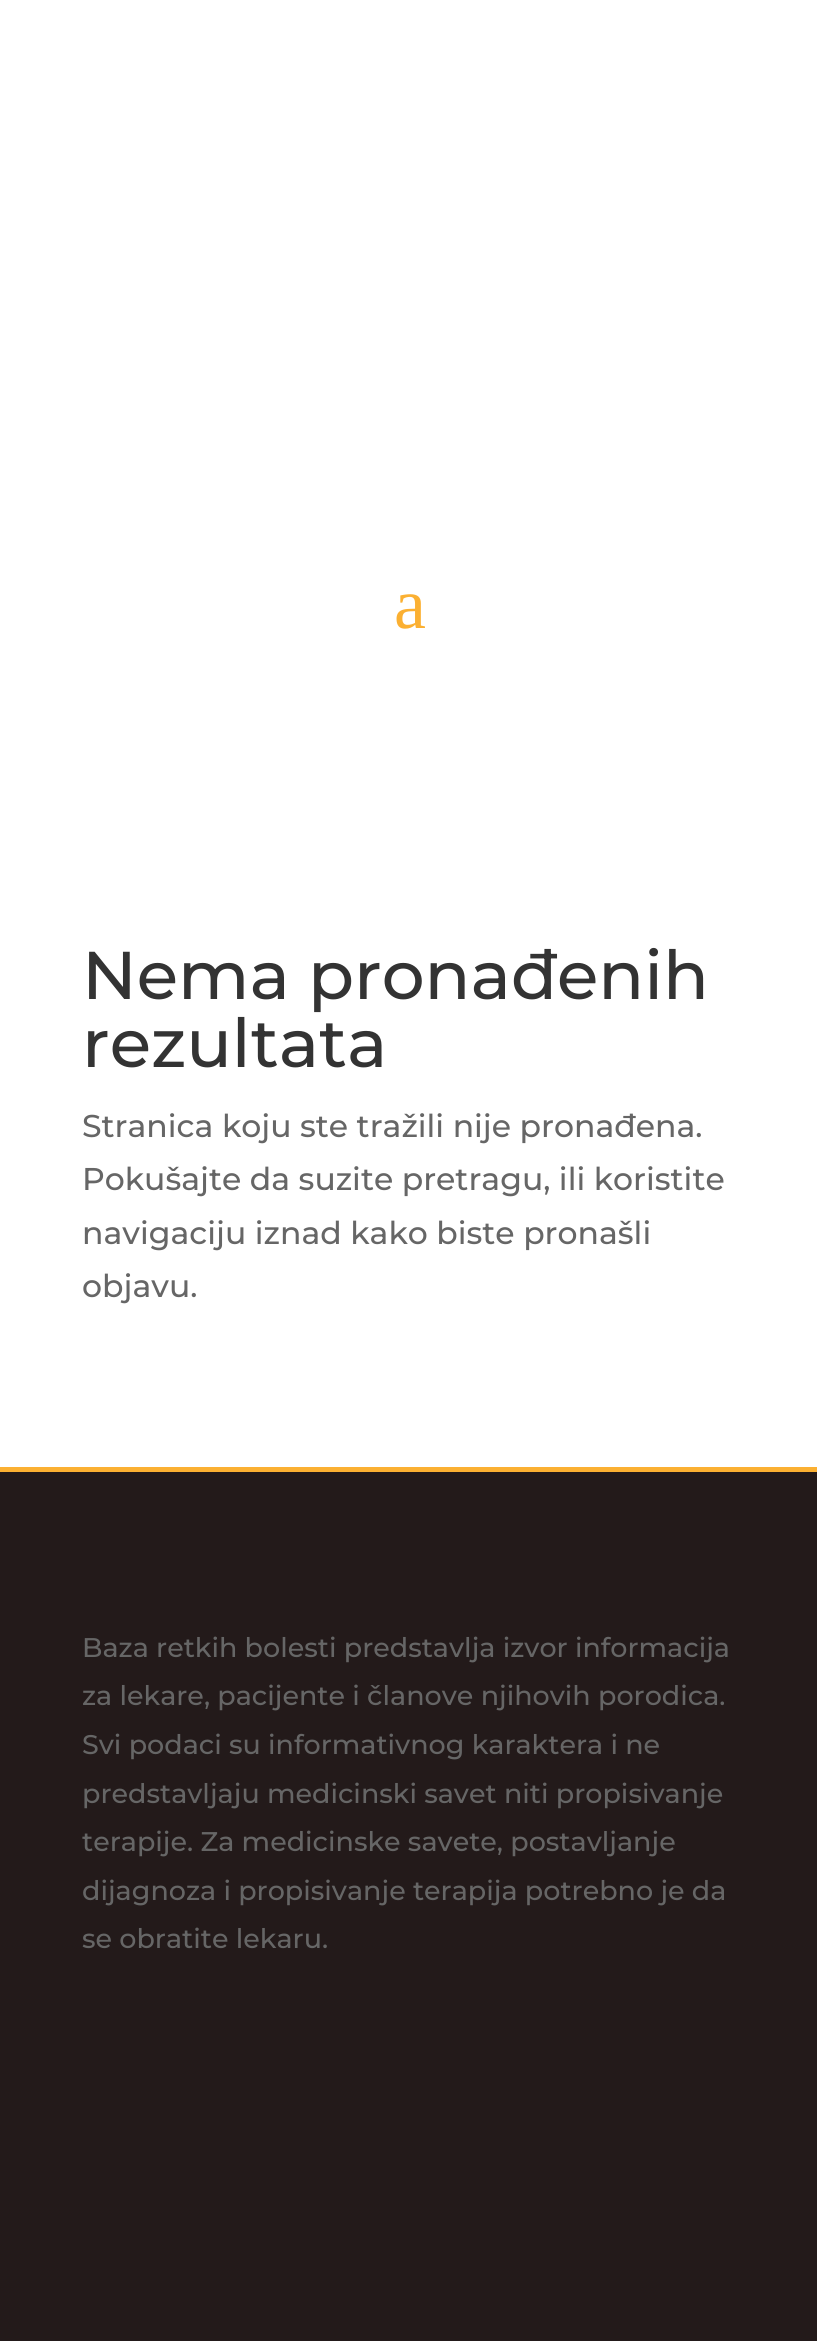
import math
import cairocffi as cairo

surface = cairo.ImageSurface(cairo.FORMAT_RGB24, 817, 2341)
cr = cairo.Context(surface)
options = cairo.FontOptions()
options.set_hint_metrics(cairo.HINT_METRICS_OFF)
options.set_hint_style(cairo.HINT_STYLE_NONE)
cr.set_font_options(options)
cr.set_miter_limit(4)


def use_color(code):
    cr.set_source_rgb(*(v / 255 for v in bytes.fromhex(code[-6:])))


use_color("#ffffff")
cr.paint()
cr.select_font_face("Liberation Serif")
cr.set_font_size(72)
use_color("#fbb032")
cr.move_to(394, 628)
cr.show_text("a")
cr.select_font_face("Montserrat Medium")
cr.set_font_size(67.5)
use_color("#333333")
cr.move_to(82, 999)
cr.show_text("Nema pronađenih")
cr.move_to(82, 1067)
cr.show_text("rezultata")
cr.set_font_size(31.5)
use_color("#666666")
cr.move_to(82, 1137)
cr.show_text("Stranica koju ste tražili nije pronađena.")
cr.move_to(82, 1190)
cr.show_text("Pokušajte da suzite pretragu, ili koristite")
cr.move_to(82, 1244)
cr.show_text("navigaciju iznad kako biste pronašli")
cr.move_to(82, 1297)
cr.show_text("objavu.")
use_color("#231a1a")
cr.rectangle(0, 1472, 817, 869)
cr.fill()
use_color("#fbb032")
cr.rectangle(0, 1467, 817, 5)
cr.fill()
cr.set_font_size(27)
use_color("#666666")
cr.move_to(82, 1657)
cr.show_text("Baza retkih bolesti predstavlja izvor informacija")
cr.move_to(82, 1705)
cr.show_text("za lekare, pacijente i članove njihovih porodica.")
cr.move_to(82, 1754)
cr.show_text("Svi podaci su informativnog karaktera i ne")
cr.move_to(82, 1803)
cr.show_text("predstavljaju medicinski savet niti propisivanje")
cr.move_to(82, 1851)
cr.show_text("terapije. Za medicinske savete, postavljanje")
cr.move_to(82, 1900)
cr.show_text("dijagnoza i propisivanje terapija potrebno je da")
cr.move_to(82, 1948)
cr.show_text("se obratite lekaru.")
surface.write_to_png("result.png")
